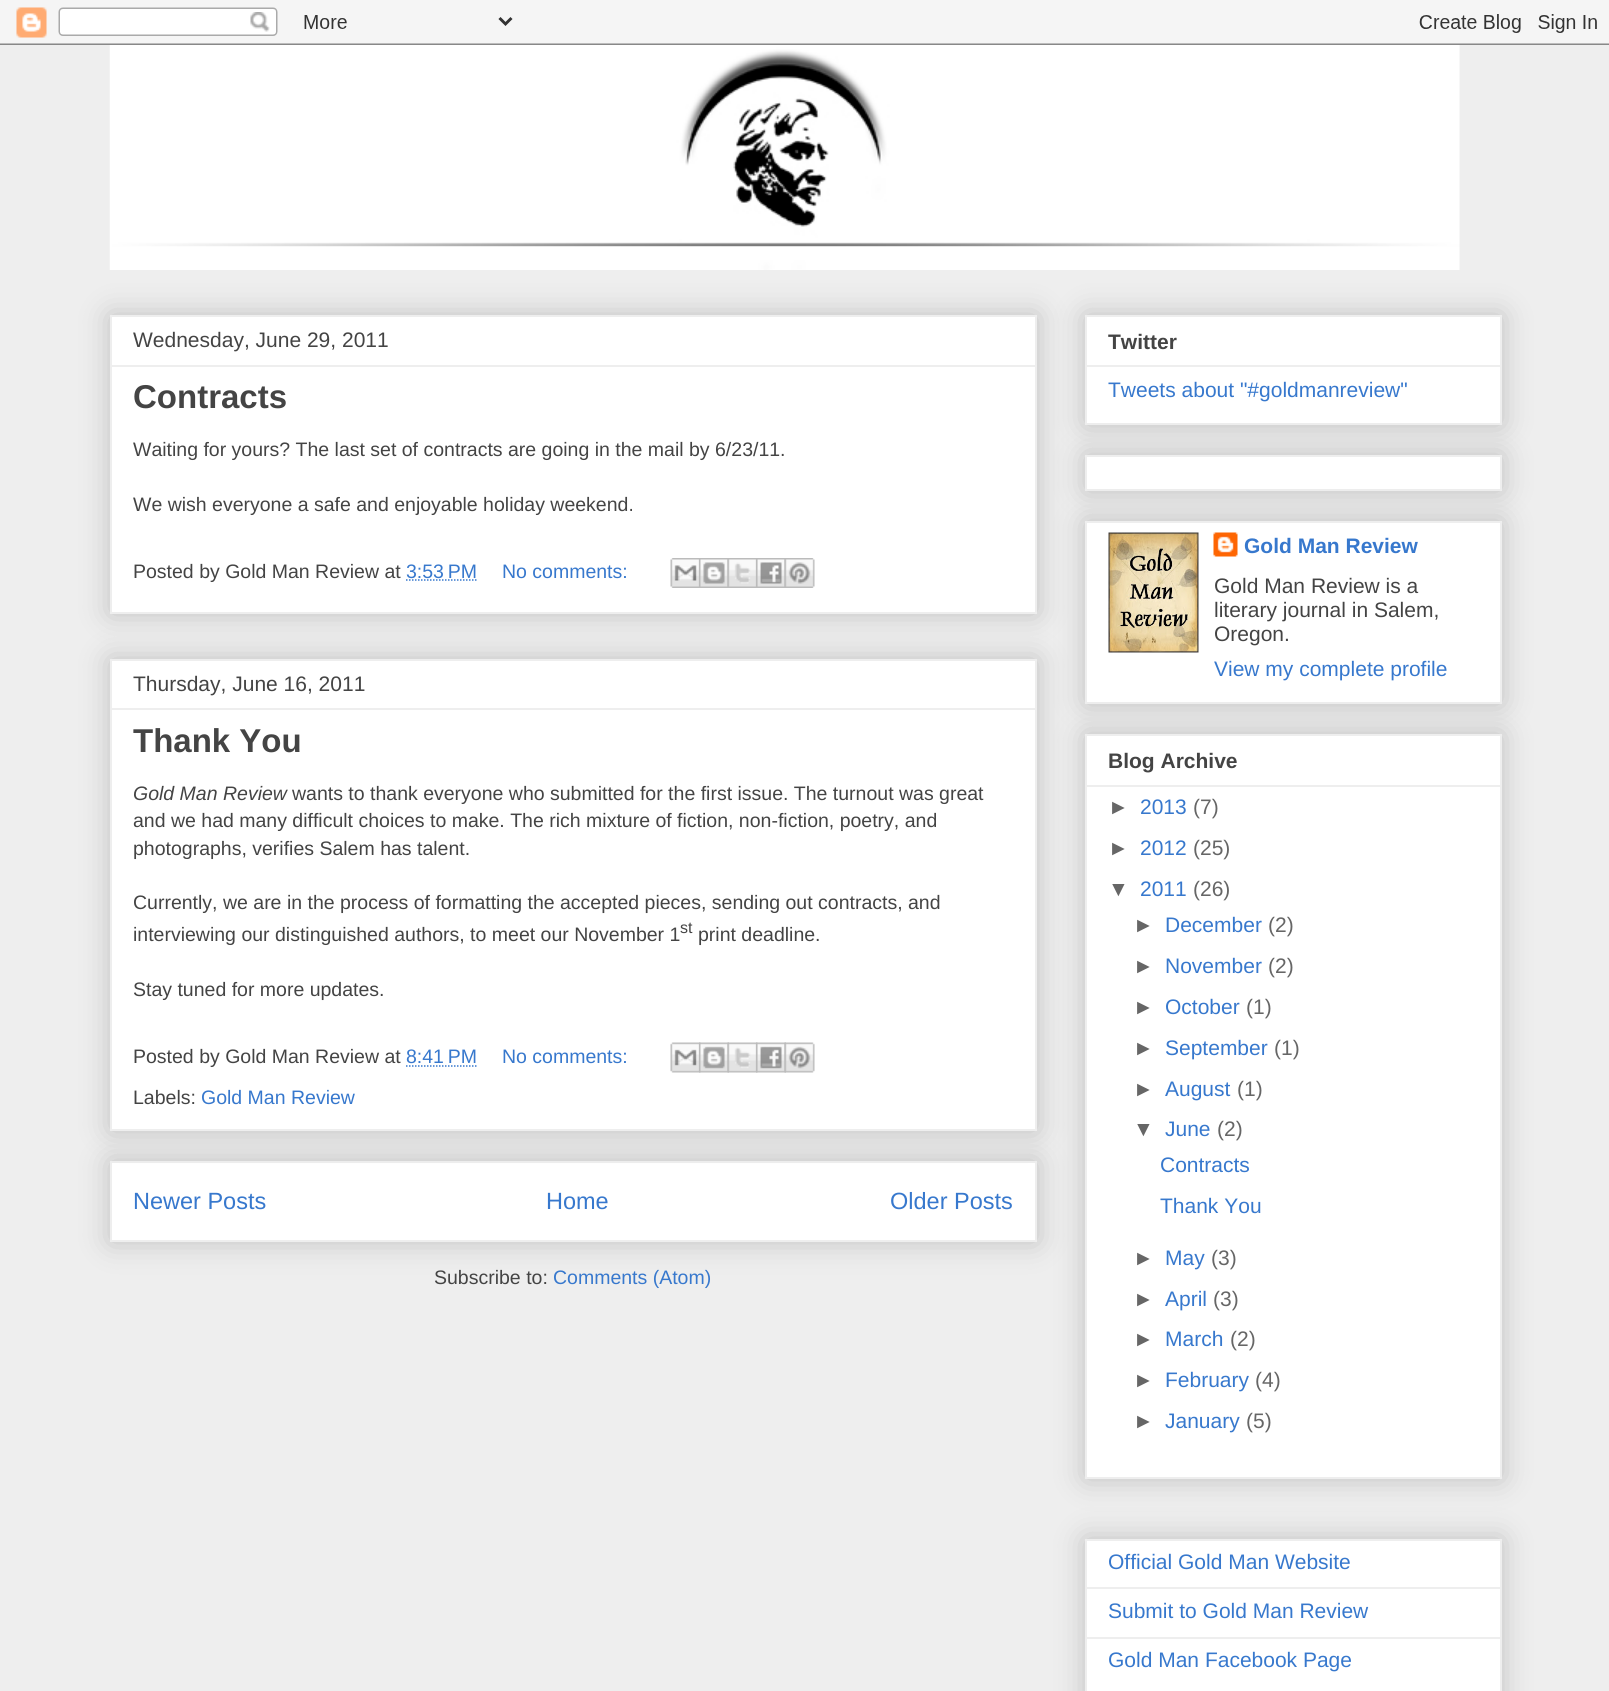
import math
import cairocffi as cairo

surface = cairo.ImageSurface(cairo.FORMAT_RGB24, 1609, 1691)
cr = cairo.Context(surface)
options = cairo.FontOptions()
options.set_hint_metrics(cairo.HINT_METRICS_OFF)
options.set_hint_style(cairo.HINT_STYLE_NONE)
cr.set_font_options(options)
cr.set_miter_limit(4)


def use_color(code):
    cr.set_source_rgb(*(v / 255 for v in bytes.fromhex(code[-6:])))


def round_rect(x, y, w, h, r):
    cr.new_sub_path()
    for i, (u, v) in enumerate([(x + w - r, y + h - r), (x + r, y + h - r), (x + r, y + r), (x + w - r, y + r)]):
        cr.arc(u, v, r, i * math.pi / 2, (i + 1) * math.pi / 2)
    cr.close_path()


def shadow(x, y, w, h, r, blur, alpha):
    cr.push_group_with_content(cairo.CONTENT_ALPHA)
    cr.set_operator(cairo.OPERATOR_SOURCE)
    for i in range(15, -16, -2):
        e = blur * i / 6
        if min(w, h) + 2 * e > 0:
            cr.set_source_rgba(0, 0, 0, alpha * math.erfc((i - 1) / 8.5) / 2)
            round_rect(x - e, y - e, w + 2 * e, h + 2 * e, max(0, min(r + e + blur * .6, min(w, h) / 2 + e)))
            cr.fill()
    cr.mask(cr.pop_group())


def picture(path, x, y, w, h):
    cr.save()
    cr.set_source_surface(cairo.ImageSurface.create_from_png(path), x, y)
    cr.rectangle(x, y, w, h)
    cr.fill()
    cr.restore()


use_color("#eeeeee")
cr.paint()
picture("img1.png", 0, 0, 1609, 45)
picture("img2.png", 109, 45, 1351, 225)
use_color("#000000")
shadow(110, 315, 927, 299, 0, 15, 0.2)
use_color("#ffffff")
cr.rectangle(111, 316, 925, 297)
cr.fill_preserve()
use_color("#eeeeee")
cr.stroke()
cr.select_font_face("Liberation Sans")
cr.set_font_size(21)
use_color("#444444")
cr.move_to(133, 347)
cr.show_text("Wednesday, June 29, 2011")
use_color("#eeeeee")
cr.rectangle(111, 365, 924, 2)
cr.fill()
cr.select_font_face("Liberation Sans", cairo.FONT_SLANT_NORMAL, cairo.FONT_WEIGHT_BOLD)
cr.set_font_size(33)
use_color("#444444")
cr.move_to(133, 408)
cr.show_text("Contracts")
cr.select_font_face("Liberation Sans")
cr.set_font_size(19.5)
cr.move_to(133, 456)
cr.show_text("Waiting for yours? The last set of contracts are going in the mail by 6/23/11.")
cr.move_to(133, 511)
cr.show_text("We wish everyone a safe and enjoyable holiday weekend.")
cr.move_to(133, 578)
cr.show_text("Posted by Gold Man Review at")
use_color("#3778cd")
cr.move_to(406, 578)
cr.show_text("3:53 PM")
cr.new_path()
cr.move_to(406, 580)
cr.line_to(477, 580)
cr.set_line_width(1.5)
cr.set_dash([1.5, 1.5])
cr.stroke()
cr.move_to(502, 578)
cr.show_text("No comments:")
picture("img3.png", 670, 558, 29, 30)
picture("img4.png", 699, 558, 29, 30)
picture("img5.png", 727, 558, 29, 30)
picture("img6.png", 756, 558, 29, 30)
picture("img7.png", 784, 558, 31, 30)
use_color("#000000")
shadow(110, 1161, 927, 81, 0, 15, 0.2)
use_color("#ffffff")
cr.rectangle(111, 1162, 925, 79)
cr.fill_preserve()
use_color("#eeeeee")
cr.set_line_width(2)
cr.set_dash([])
cr.stroke()
use_color("#000000")
shadow(110, 659, 927, 472, 0, 15, 0.2)
use_color("#ffffff")
cr.rectangle(111, 660, 925, 470)
cr.fill_preserve()
use_color("#eeeeee")
cr.stroke()
cr.set_font_size(21)
use_color("#444444")
cr.move_to(133, 691)
cr.show_text("Thursday, June 16, 2011")
use_color("#eeeeee")
cr.rectangle(111, 708, 924, 2)
cr.fill()
cr.select_font_face("Liberation Sans", cairo.FONT_SLANT_NORMAL, cairo.FONT_WEIGHT_BOLD)
cr.set_font_size(33)
use_color("#444444")
cr.move_to(133, 752)
cr.show_text("Thank You")
cr.select_font_face("Liberation Sans", cairo.FONT_SLANT_ITALIC)
cr.set_font_size(19.5)
cr.move_to(133, 800)
cr.show_text("Gold Man Review")
cr.select_font_face("Liberation Sans")
cr.move_to(292, 800)
cr.show_text("wants to thank everyone who submitted for the first issue. The turnout was great")
cr.move_to(133, 827)
cr.show_text("and we had many difficult choices to make. The rich mixture of fiction, non-fiction, poetry, and")
cr.move_to(133, 855)
cr.show_text("photographs, verifies Salem has talent.")
cr.move_to(133, 909)
cr.show_text("Currently, we are in the process of formatting the accepted pieces, sending out contracts, and")
cr.move_to(133, 941)
cr.show_text("interviewing our distinguished authors, to meet our November 1")
cr.set_font_size(16)
cr.move_to(680, 933)
cr.show_text("st")
cr.set_font_size(19.5)
cr.move_to(698, 941)
cr.show_text("print deadline.")
cr.move_to(133, 996)
cr.show_text("Stay tuned for more updates.")
cr.move_to(133, 1063)
cr.show_text("Posted by Gold Man Review at")
use_color("#3778cd")
cr.move_to(406, 1063)
cr.show_text("8:41 PM")
cr.new_path()
cr.move_to(406, 1066)
cr.line_to(477, 1066)
cr.set_line_width(1.5)
cr.set_dash([1.5, 1.5])
cr.stroke()
cr.move_to(502, 1063)
cr.show_text("No comments:")
picture("img8.png", 670, 1042, 31, 31)
picture("img9.png", 699, 1042, 30, 31)
picture("img10.png", 727, 1042, 31, 31)
picture("img11.png", 756, 1042, 30, 31)
picture("img12.png", 784, 1042, 31, 31)
use_color("#444444")
cr.move_to(133, 1104)
cr.show_text("Labels:")
use_color("#3778cd")
cr.move_to(201, 1104)
cr.show_text("Gold Man Review")
cr.set_font_size(23.5)
cr.move_to(133, 1209)
cr.show_text("Newer Posts")
cr.move_to(546, 1209)
cr.show_text("Home")
cr.move_to(890, 1209)
cr.show_text("Older Posts")
cr.set_font_size(19.5)
use_color("#444444")
cr.move_to(434, 1284)
cr.show_text("Subscribe to:")
use_color("#3778cd")
cr.move_to(553, 1284)
cr.show_text("Comments (Atom)")
use_color("#000000")
shadow(1085, 315, 417, 110, 0, 15, 0.2)
use_color("#ffffff")
cr.rectangle(1086, 316, 415, 108)
cr.fill_preserve()
use_color("#eeeeee")
cr.set_line_width(2)
cr.set_dash([])
cr.stroke()
cr.select_font_face("Liberation Sans", cairo.FONT_SLANT_NORMAL, cairo.FONT_WEIGHT_BOLD)
cr.set_font_size(21)
use_color("#444444")
cr.move_to(1108, 349)
cr.show_text("Twitter")
use_color("#eeeeee")
cr.rectangle(1086, 365, 414, 2)
cr.fill()
cr.select_font_face("Liberation Sans")
use_color("#3778cd")
cr.move_to(1108, 397)
cr.show_text("Tweets about \"#goldmanreview\"")
use_color("#000000")
shadow(1085, 455, 417, 36, 0, 15, 0.2)
use_color("#ffffff")
cr.rectangle(1086, 456, 415, 34)
cr.fill_preserve()
use_color("#eeeeee")
cr.stroke()
use_color("#000000")
shadow(1085, 521, 417, 183, 0, 15, 0.2)
use_color("#ffffff")
cr.rectangle(1086, 522, 415, 181)
cr.fill_preserve()
use_color("#eeeeee")
cr.stroke()
picture("img13.png", 1108, 532, 91, 121)
picture("img14.png", 1213, 532, 25, 25)
cr.select_font_face("Liberation Sans", cairo.FONT_SLANT_NORMAL, cairo.FONT_WEIGHT_BOLD)
use_color("#3778cd")
cr.move_to(1244, 553)
cr.show_text("Gold Man Review")
cr.select_font_face("Liberation Sans")
use_color("#444444")
cr.move_to(1214, 593)
cr.show_text("Gold Man Review is a")
cr.move_to(1214, 617)
cr.show_text("literary journal in Salem,")
cr.move_to(1214, 641)
cr.show_text("Oregon.")
use_color("#3778cd")
cr.move_to(1214, 676)
cr.show_text("View my complete profile")
use_color("#000000")
shadow(1085, 734, 417, 745, 0, 15, 0.2)
use_color("#ffffff")
cr.rectangle(1086, 735, 415, 743)
cr.fill_preserve()
use_color("#eeeeee")
cr.stroke()
cr.select_font_face("Liberation Sans", cairo.FONT_SLANT_NORMAL, cairo.FONT_WEIGHT_BOLD)
use_color("#444444")
cr.move_to(1108, 768)
cr.show_text("Blog Archive")
use_color("#eeeeee")
cr.rectangle(1086, 785, 414, 2)
cr.fill()
cr.select_font_face("Liberation Sans")
use_color("#666666")
cr.move_to(1108, 814)
cr.show_text("►")
use_color("#3778cd")
cr.move_to(1140, 814)
cr.show_text("2013")
use_color("#666666")
cr.move_to(1193, 814)
cr.show_text("(7)")
cr.move_to(1108, 855)
cr.show_text("►")
use_color("#3778cd")
cr.move_to(1140, 855)
cr.show_text("2012")
use_color("#666666")
cr.move_to(1193, 855)
cr.show_text("(25)")
cr.move_to(1108, 896)
cr.show_text("▼")
use_color("#3778cd")
cr.move_to(1140, 896)
cr.show_text("2011")
use_color("#666666")
cr.move_to(1193, 896)
cr.show_text("(26)")
cr.move_to(1133, 932)
cr.show_text("►")
use_color("#3778cd")
cr.move_to(1165, 932)
cr.show_text("December")
use_color("#666666")
cr.move_to(1268, 932)
cr.show_text("(2)")
cr.move_to(1133, 973)
cr.show_text("►")
use_color("#3778cd")
cr.move_to(1165, 973)
cr.show_text("November")
use_color("#666666")
cr.move_to(1268, 973)
cr.show_text("(2)")
cr.move_to(1133, 1014)
cr.show_text("►")
use_color("#3778cd")
cr.move_to(1165, 1014)
cr.show_text("October")
use_color("#666666")
cr.move_to(1246, 1014)
cr.show_text("(1)")
cr.move_to(1133, 1055)
cr.show_text("►")
use_color("#3778cd")
cr.move_to(1165, 1055)
cr.show_text("September")
use_color("#666666")
cr.move_to(1274, 1055)
cr.show_text("(1)")
cr.move_to(1133, 1096)
cr.show_text("►")
use_color("#3778cd")
cr.move_to(1165, 1096)
cr.show_text("August")
use_color("#666666")
cr.move_to(1237, 1096)
cr.show_text("(1)")
cr.move_to(1133, 1136)
cr.show_text("▼")
use_color("#3778cd")
cr.move_to(1165, 1136)
cr.show_text("June")
use_color("#666666")
cr.move_to(1217, 1136)
cr.show_text("(2)")
use_color("#3778cd")
cr.move_to(1160, 1172)
cr.show_text("Contracts")
cr.move_to(1160, 1213)
cr.show_text("Thank You")
use_color("#666666")
cr.move_to(1133, 1265)
cr.show_text("►")
use_color("#3778cd")
cr.move_to(1165, 1265)
cr.show_text("May")
use_color("#666666")
cr.move_to(1211, 1265)
cr.show_text("(3)")
cr.move_to(1133, 1306)
cr.show_text("►")
use_color("#3778cd")
cr.move_to(1165, 1306)
cr.show_text("April")
use_color("#666666")
cr.move_to(1213, 1306)
cr.show_text("(3)")
cr.move_to(1133, 1346)
cr.show_text("►")
use_color("#3778cd")
cr.move_to(1165, 1346)
cr.show_text("March")
use_color("#666666")
cr.move_to(1230, 1346)
cr.show_text("(2)")
cr.move_to(1133, 1387)
cr.show_text("►")
use_color("#3778cd")
cr.move_to(1165, 1387)
cr.show_text("February")
use_color("#666666")
cr.move_to(1255, 1387)
cr.show_text("(4)")
cr.move_to(1133, 1428)
cr.show_text("►")
use_color("#3778cd")
cr.move_to(1165, 1428)
cr.show_text("January")
use_color("#666666")
cr.move_to(1246, 1428)
cr.show_text("(5)")
use_color("#000000")
shadow(1085, 1539, 417, 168, 0, 15, 0.2)
use_color("#ffffff")
cr.rectangle(1086, 1540, 415, 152)
cr.fill_preserve()
use_color("#eeeeee")
cr.stroke()
use_color("#3778cd")
cr.move_to(1108, 1569)
cr.show_text("Official Gold Man Website")
use_color("#eeeeee")
cr.rectangle(1086, 1587, 414, 2)
cr.fill()
use_color("#3778cd")
cr.move_to(1108, 1618)
cr.show_text("Submit to Gold Man Review")
use_color("#eeeeee")
cr.rectangle(1086, 1637, 414, 2)
cr.fill()
use_color("#3778cd")
cr.move_to(1108, 1667)
cr.show_text("Gold Man Facebook Page")
surface.write_to_png("result.png")
